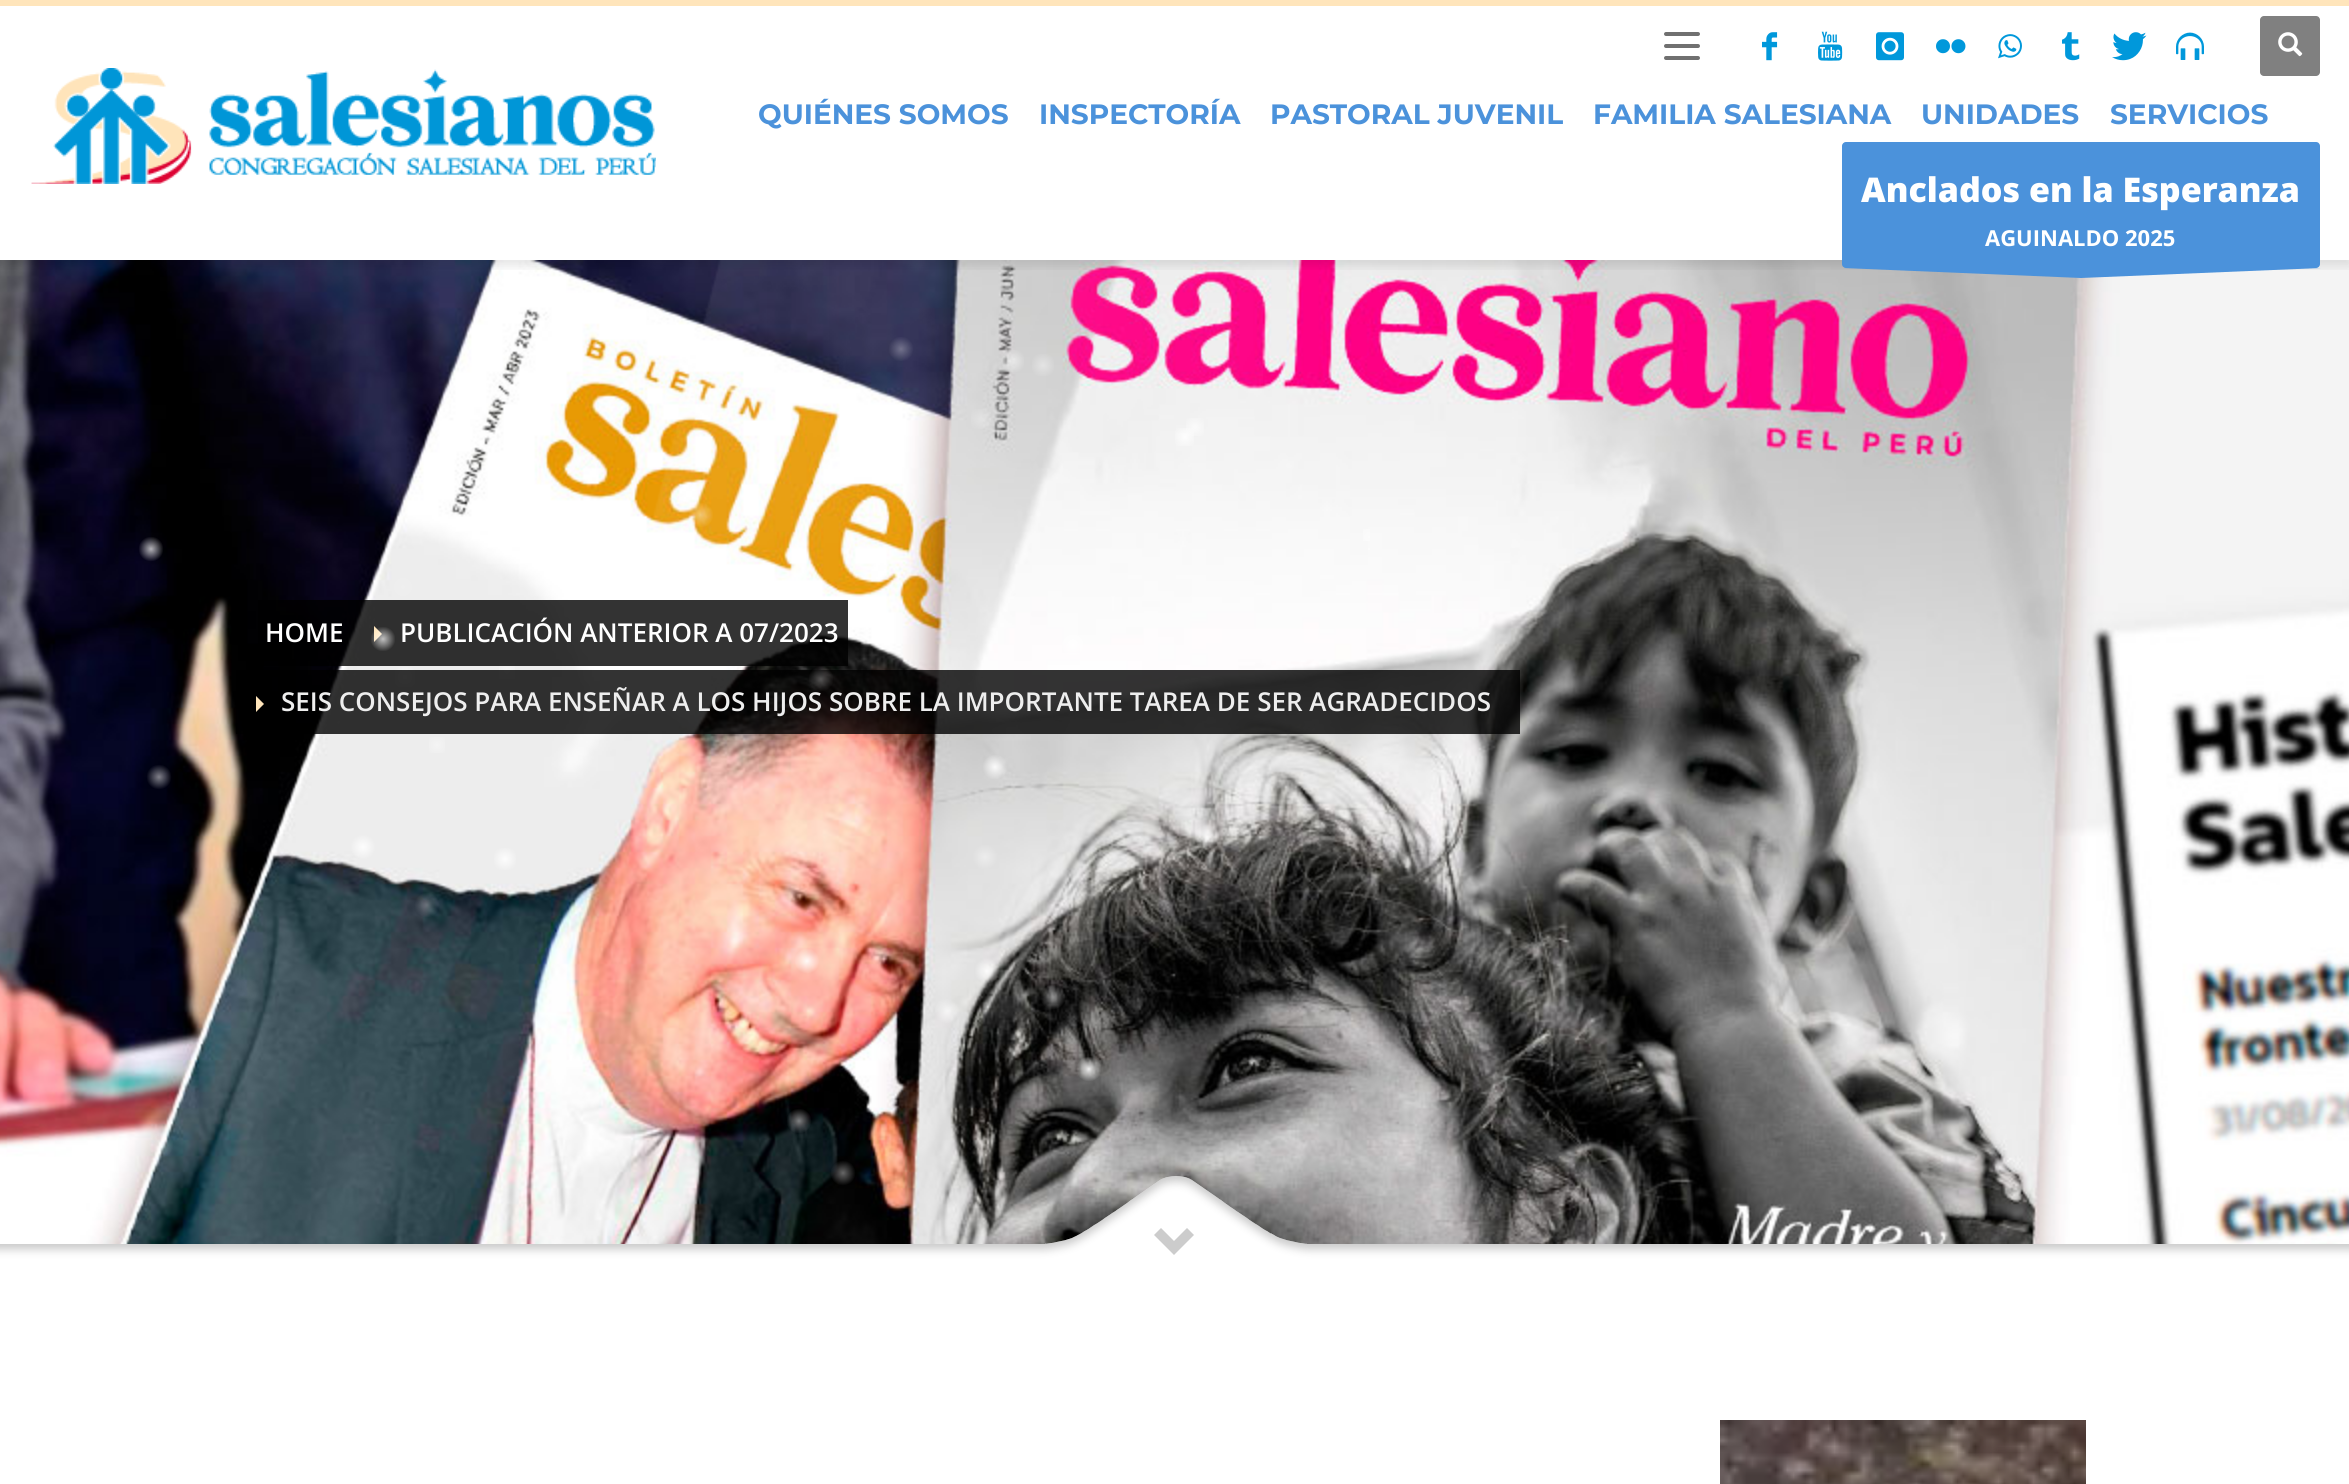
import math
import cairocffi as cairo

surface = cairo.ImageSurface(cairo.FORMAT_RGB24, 2349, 1484)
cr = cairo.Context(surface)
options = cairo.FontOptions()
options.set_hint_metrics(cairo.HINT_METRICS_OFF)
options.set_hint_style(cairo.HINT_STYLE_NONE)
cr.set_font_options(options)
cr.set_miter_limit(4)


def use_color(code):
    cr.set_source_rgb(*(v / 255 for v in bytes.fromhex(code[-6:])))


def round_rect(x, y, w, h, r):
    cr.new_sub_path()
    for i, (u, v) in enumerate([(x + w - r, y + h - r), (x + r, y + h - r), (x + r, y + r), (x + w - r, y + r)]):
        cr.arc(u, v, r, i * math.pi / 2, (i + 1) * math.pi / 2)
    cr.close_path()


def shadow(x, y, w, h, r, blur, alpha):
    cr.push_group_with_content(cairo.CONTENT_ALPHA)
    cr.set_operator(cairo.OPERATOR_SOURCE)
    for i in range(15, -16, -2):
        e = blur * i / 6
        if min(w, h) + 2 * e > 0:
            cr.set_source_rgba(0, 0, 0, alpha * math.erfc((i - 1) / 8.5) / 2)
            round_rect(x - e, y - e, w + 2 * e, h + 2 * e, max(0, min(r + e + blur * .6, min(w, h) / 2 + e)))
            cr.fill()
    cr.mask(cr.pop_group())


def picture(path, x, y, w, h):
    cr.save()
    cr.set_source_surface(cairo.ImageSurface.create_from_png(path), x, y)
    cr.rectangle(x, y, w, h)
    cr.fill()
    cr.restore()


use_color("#ffffff")
cr.paint()
picture("img11.png", 0, 260, 2349, 984)
picture("img12.png", 652, 260, 611, 481)
cr.save()
cr.rectangle(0, 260, 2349, 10)
cr.clip()
use_color("#000000")
shadow(0, 6, 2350, 260, 0, 5, 0.1)
cr.restore()
use_color("#ffe5bb")
cr.rectangle(0, 0, 2349, 6)
cr.fill()
picture("img1.png", 31, 68, 625, 116)
use_color("#707070")
round_rect(1664, 56, 36, 4, 2)
cr.fill()
round_rect(1664, 44, 36, 4, 2)
cr.fill()
round_rect(1664, 32, 36, 4, 2)
cr.fill()
picture("img2.png", 1762, 32, 16, 29)
picture("img3.png", 1818, 31, 25, 30)
picture("img4.png", 1876, 32, 28, 29)
picture("img5.png", 1936, 39, 30, 15)
picture("img6.png", 1998, 34, 24, 25)
picture("img7.png", 2062, 32, 18, 29)
picture("img8.png", 2112, 32, 35, 29)
picture("img9.png", 2176, 32, 28, 28)
use_color("#808080")
round_rect(2260, 16, 60, 60, 4)
cr.fill()
picture("img10.png", 2278, 32, 25, 25)
cr.select_font_face("Montserrat", cairo.FONT_SLANT_NORMAL, cairo.FONT_WEIGHT_BOLD)
cr.set_font_size(28)
use_color("#4b92db")
cr.move_to(758, 124)
cr.show_text("QUIÉNES SOMOS")
cr.move_to(1039, 124)
cr.show_text("INSPECTORÍA")
cr.move_to(1270, 124)
cr.show_text("PASTORAL JUVENIL")
cr.move_to(1593, 124)
cr.show_text("FAMILIA SALESIANA")
cr.move_to(1921, 124)
cr.show_text("UNIDADES")
cr.move_to(2110, 124)
cr.show_text("SERVICIOS")
round_rect(1842, 142, 478, 126, 4)
cr.fill()
cr.select_font_face("Open Sans ExtraBold")
cr.set_font_size(34)
use_color("#ffffff")
cr.move_to(1861, 202)
cr.show_text("Anclados en la Esperanza")
cr.select_font_face("Open Sans", cairo.FONT_SLANT_NORMAL, cairo.FONT_WEIGHT_BOLD)
cr.set_font_size(22)
cr.move_to(1985, 246)
cr.show_text("AGUINALDO 2025")
use_color("#4b92db")
cr.set_fill_rule(cairo.FILL_RULE_EVEN_ODD)
cr.new_path()
cr.move_to(2321, 268)
cr.line_to(2081, 278)
cr.line_to(1842, 268)
cr.close_path()
cr.fill()
gradient = cairo.RadialGradient(901, 349, 0, 901, 349, 21)
gradient.add_color_stop_rgba(0, 1, 1, 1, 0.3)
gradient.add_color_stop_rgba(0.6, 1, 1, 1, 0)
cr.set_source(gradient)
cr.rectangle(889, 337, 24, 24)
cr.fill()
gradient = cairo.RadialGradient(1013, 361, 0, 1013, 361, 21)
gradient.add_color_stop_rgba(0, 1, 1, 1, 0.5)
gradient.add_color_stop_rgba(0.6, 1, 1, 1, 0)
cr.set_source(gradient)
cr.rectangle(1002, 350, 22, 22)
cr.fill()
gradient = cairo.RadialGradient(1043, 365, 0, 1043, 365, 21)
gradient.add_color_stop_rgba(0, 1, 1, 1, 0.4)
gradient.add_color_stop_rgba(0.6, 1, 1, 1, 0)
cr.set_source(gradient)
cr.rectangle(1032, 354, 22, 22)
cr.fill()
gradient = cairo.RadialGradient(981, 419, 0, 981, 419, 21)
gradient.add_color_stop_rgba(0, 1, 1, 1, 0.3)
gradient.add_color_stop_rgba(0.6, 1, 1, 1, 0)
cr.set_source(gradient)
cr.rectangle(971, 409, 20, 20)
cr.fill()
gradient = cairo.RadialGradient(1195, 427, 0, 1195, 427, 21)
gradient.add_color_stop_rgba(0, 1, 1, 1, 0.7)
gradient.add_color_stop_rgba(0.6, 1, 1, 1, 0)
cr.set_source(gradient)
cr.rectangle(1186, 418, 18, 18)
cr.fill()
gradient = cairo.RadialGradient(1185, 437, 0, 1185, 437, 21)
gradient.add_color_stop_rgba(0, 1, 1, 1, 0.9)
gradient.add_color_stop_rgba(0.6, 1, 1, 1, 0)
cr.set_source(gradient)
cr.rectangle(1175, 428, 19, 18)
cr.fill()
gradient = cairo.RadialGradient(701, 515, 0, 701, 515, 21)
gradient.add_color_stop_rgba(0, 1, 1, 1, 0.4)
gradient.add_color_stop_rgba(0.6, 1, 1, 1, 0)
cr.set_source(gradient)
cr.rectangle(689, 503, 24, 24)
cr.fill()
gradient = cairo.RadialGradient(1369, 537, 0, 1369, 537, 21)
gradient.add_color_stop_rgba(0, 0.988, 0.988, 0.988, 1)
gradient.add_color_stop_rgba(0.6, 0.973, 0.973, 0.973, 1)
cr.set_source(gradient)
cr.rectangle(1363, 529, 7, 12)
cr.fill()
gradient = cairo.RadialGradient(1369, 549, 0, 1369, 549, 21)
gradient.add_color_stop_rgba(0, 1, 1, 1, 0.4)
gradient.add_color_stop_rgba(0.6, 1, 1, 1, 0)
cr.set_source(gradient)
cr.rectangle(1368, 548, 2, 2)
cr.fill()
gradient = cairo.RadialGradient(507, 671, 0, 507, 671, 21)
gradient.add_color_stop_rgba(0, 0.957, 0.957, 0.957, 1)
gradient.add_color_stop_rgba(0.6, 0.929, 0.929, 0.929, 1)
cr.set_source(gradient)
cr.rectangle(499, 663, 16, 16)
cr.fill()
cr.set_source_rgba(0, 0, 0, 0.8)
cr.rectangle(354, 600, 494, 66)
cr.fill()
use_color("#ffe5bb")
cr.set_fill_rule(cairo.FILL_RULE_WINDING)
cr.new_path()
cr.move_to(374, 642)
cr.line_to(374, 626)
cr.line_to(382, 634)
cr.close_path()
cr.fill()
gradient = cairo.RadialGradient(383, 639, 0, 383, 639, 21)
gradient.add_color_stop_rgba(0, 1, 1, 1, 0.7)
gradient.add_color_stop_rgba(0.6, 1, 1, 1, 0)
cr.set_source(gradient)
cr.rectangle(371, 627, 24, 24)
cr.fill()
gradient = cairo.RadialGradient(405, 677, 0, 405, 677, 21)
gradient.add_color_stop_rgba(0, 0.98, 0.98, 0.98, 1)
gradient.add_color_stop_rgba(0.6, 0.929, 0.929, 0.929, 1)
cr.set_source(gradient)
cr.rectangle(395, 667, 20, 20)
cr.fill()
cr.set_source_rgba(0, 0, 0, 0.8)
cr.rectangle(236, 670, 1284, 64)
cr.fill()
gradient = cairo.RadialGradient(821, 679, 0, 821, 679, 21)
gradient.add_color_stop_rgba(0, 1, 1, 1, 0.3)
gradient.add_color_stop_rgba(0.6, 1, 1, 1, 0)
cr.set_source(gradient)
cr.rectangle(809, 667, 24, 24)
cr.fill()
gradient = cairo.RadialGradient(437, 745, 0, 437, 745, 21)
gradient.add_color_stop_rgba(0, 0.957, 0.957, 0.957, 1)
gradient.add_color_stop_rgba(0.6, 0.929, 0.929, 0.929, 1)
cr.set_source(gradient)
cr.rectangle(429, 737, 16, 16)
cr.fill()
gradient = cairo.RadialGradient(505, 859, 0, 505, 859, 21)
gradient.add_color_stop_rgba(0, 0.992, 0.992, 0.992, 1)
gradient.add_color_stop_rgba(0.6, 0.929, 0.929, 0.929, 1)
cr.set_source(gradient)
cr.rectangle(494, 848, 22, 22)
cr.fill()
cr.set_source_rgba(0, 0, 0, 0.8)
cr.rectangle(258, 600, 96, 66)
cr.fill()
cr.select_font_face("Open Sans SemiBold")
cr.set_font_size(26)
use_color("#ffffff")
cr.move_to(265, 642)
cr.show_text("HOME")
cr.move_to(400, 642)
cr.show_text("PUBLICACIÓN ANTERIOR A 07/2023")
use_color("#ffe5bb")
cr.new_path()
cr.move_to(256, 712)
cr.line_to(256, 696)
cr.line_to(264, 704)
cr.close_path()
cr.fill()
use_color("#eeeeee")
cr.move_to(281, 711)
cr.show_text("SEIS CONSEJOS PARA ENSEÑAR A LOS HIJOS SOBRE LA IMPORTANTE TAREA DE SER AGRADECIDOS")
picture("img13.png", 0, 1176, 2349, 84)
use_color("#cccccc")
cr.new_path()
cr.move_to(1194, 1235)
cr.line_to(1174, 1255)
cr.line_to(1154, 1235)
cr.line_to(1161, 1228)
cr.line_to(1174, 1241)
cr.line_to(1187, 1228)
cr.close_path()
cr.fill()
picture("img14.png", 1720, 1420, 366, 64)
surface.write_to_png("result.png")
